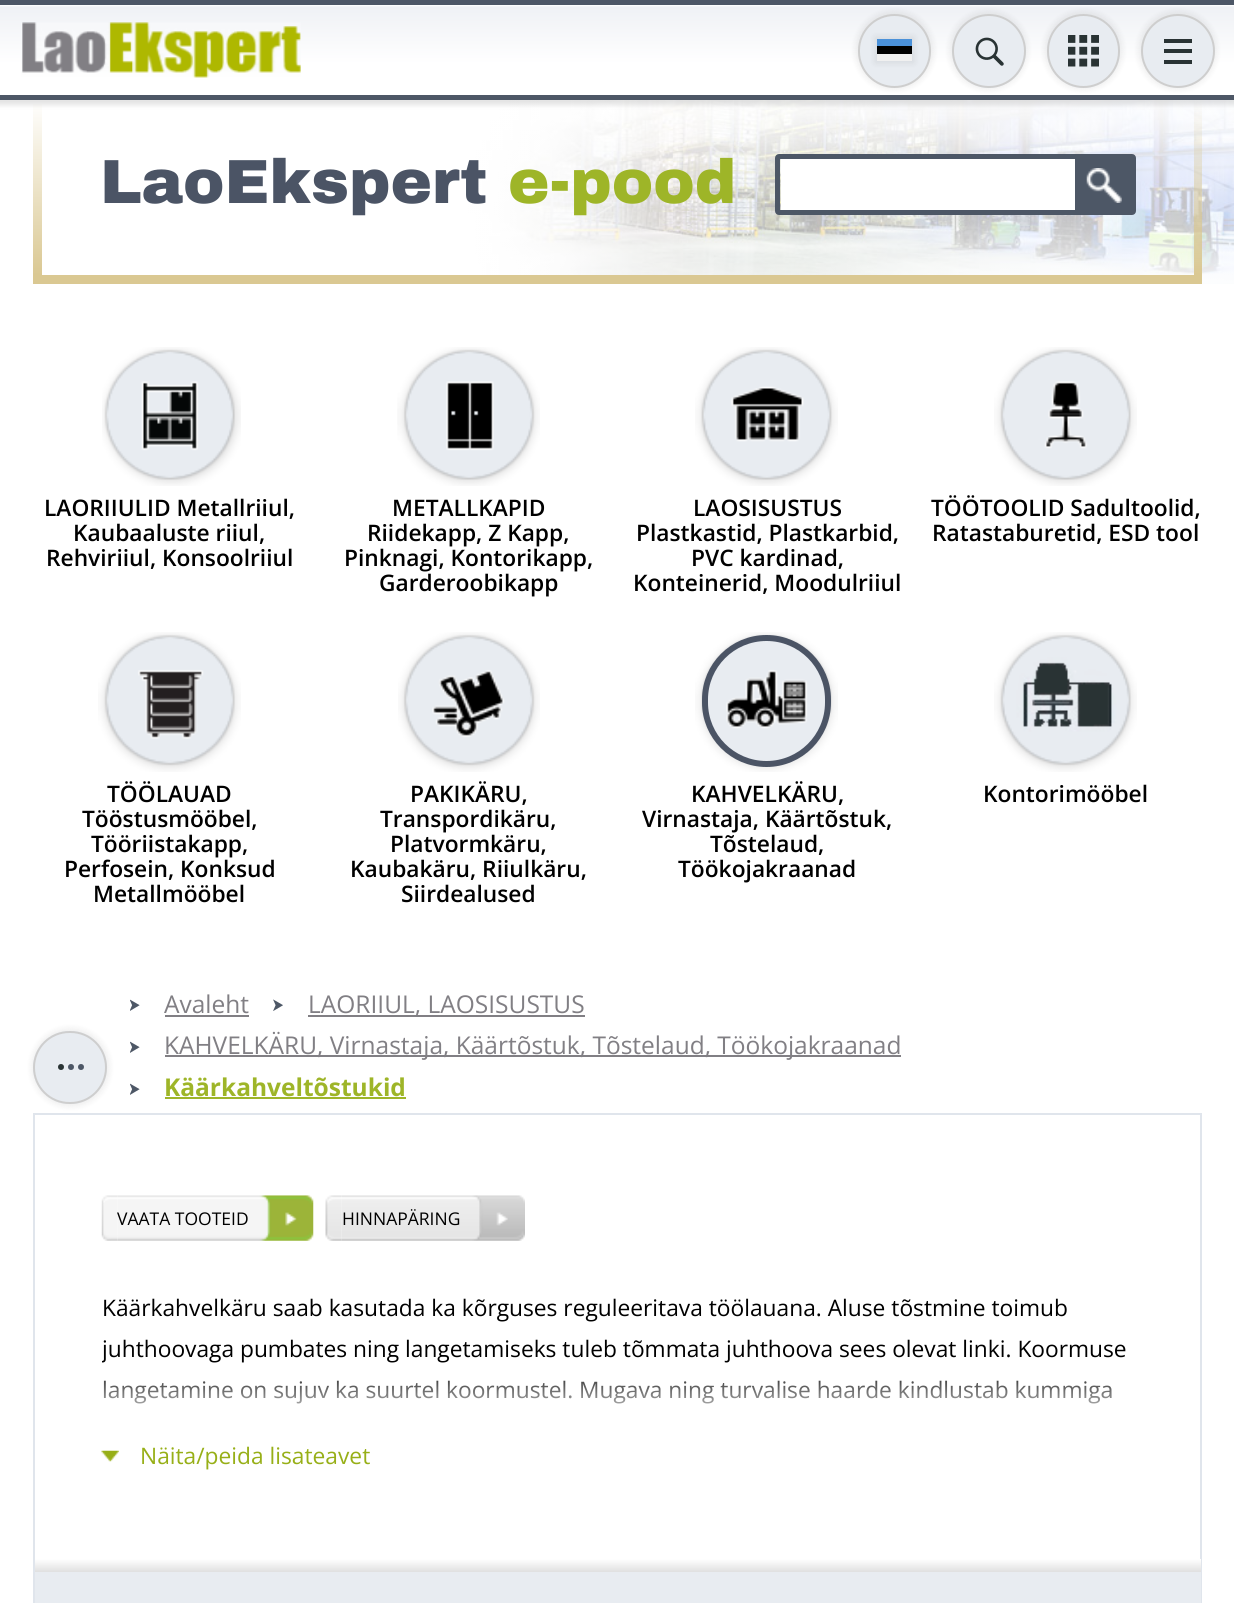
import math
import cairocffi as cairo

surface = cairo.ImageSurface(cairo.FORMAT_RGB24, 1234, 1603)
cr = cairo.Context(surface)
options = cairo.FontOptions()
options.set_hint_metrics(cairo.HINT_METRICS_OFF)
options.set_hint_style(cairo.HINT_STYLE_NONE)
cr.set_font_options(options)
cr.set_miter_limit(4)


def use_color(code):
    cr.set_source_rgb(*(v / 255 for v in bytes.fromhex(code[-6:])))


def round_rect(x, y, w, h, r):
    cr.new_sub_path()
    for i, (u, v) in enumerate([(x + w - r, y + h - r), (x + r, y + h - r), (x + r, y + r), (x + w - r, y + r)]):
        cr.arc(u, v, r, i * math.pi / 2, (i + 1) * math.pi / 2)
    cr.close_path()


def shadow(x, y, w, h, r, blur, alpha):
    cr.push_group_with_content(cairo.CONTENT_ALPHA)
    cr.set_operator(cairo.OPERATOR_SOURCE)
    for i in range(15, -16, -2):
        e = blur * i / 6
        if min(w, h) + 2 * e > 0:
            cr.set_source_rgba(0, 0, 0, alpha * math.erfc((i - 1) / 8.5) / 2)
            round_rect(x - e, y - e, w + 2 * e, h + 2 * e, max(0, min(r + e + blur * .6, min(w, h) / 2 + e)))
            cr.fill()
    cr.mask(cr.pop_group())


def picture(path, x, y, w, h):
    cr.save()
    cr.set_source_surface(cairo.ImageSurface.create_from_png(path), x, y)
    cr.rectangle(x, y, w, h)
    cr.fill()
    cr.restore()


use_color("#ffffff")
cr.paint()
picture("img4.png", 458, 100, 776, 184)
gradient = cairo.LinearGradient(38, 100, 38, 275)
gradient.add_color_stop_rgba(0, 1, 1, 1, 1)
gradient.add_color_stop_rgba(1, 0.855, 0.784, 0.573, 1)
cr.set_source(gradient)
cr.rectangle(33, 104, 9, 171)
cr.fill()
use_color("#000000")
shadow(-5, -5, 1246, 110, 0, 2.5, 0.11)
gradient = cairo.LinearGradient(618, 5.2, 618, 95)
gradient.add_color_stop_rgba(0, 1, 1, 1, 1)
gradient.add_color_stop_rgba(0.02, 0.937, 0.945, 0.961, 1)
gradient.add_color_stop_rgba(0.65, 1, 1, 1, 1)
cr.set_source(gradient)
cr.rectangle(0, 5, 1234, 90)
cr.fill()
use_color("#4d5766")
cr.rectangle(0, 0, 1234, 5)
cr.fill()
cr.rectangle(0, 95, 1234, 5)
cr.fill()
picture("img1.png", 21, 22, 280, 56)
use_color("#000000")
shadow(856, 12, 77, 77, 38.5, 3.5, 0.08)
use_color("#e8ecf1")
round_rect(859, 15, 71, 72, 35.5)
cr.fill_preserve()
use_color("#cecece")
cr.stroke()
use_color("#000000")
shadow(875, 37, 39, 26, 0, 3.5, 0.08)
use_color("#f0f0f0")
cr.rectangle(877, 54, 35, 7)
cr.fill()
use_color("#4a91d9")
cr.rectangle(877, 39, 35, 7)
cr.fill()
use_color("#000000")
cr.rectangle(877, 46, 35, 8)
cr.fill()
use_color("#000000")
shadow(950, 12, 77, 77, 38.5, 3.5, 0.08)
use_color("#e8ecf1")
cr.arc(989, 51, 37, 0, 2 * math.pi)
cr.fill()
picture("img2.png", 975, 37, 29, 29)
cr.arc(989, 51, 36, 0, 2 * math.pi)
use_color("#cecece")
cr.stroke()
use_color("#000000")
shadow(1045, 12, 77, 77, 38.5, 3.5, 0.08)
use_color("#e8ecf1")
round_rect(1047, 14, 73, 74, 36.5)
cr.fill()
picture("img3.png", 1068, 35, 31, 32)
round_rect(1048, 15, 71, 72, 35.5)
use_color("#cecece")
cr.stroke()
use_color("#000000")
shadow(1139, 12, 77, 77, 38.5, 3.5, 0.08)
use_color("#e8ecf1")
cr.arc(1178, 51, 36, 0, 2 * math.pi)
cr.fill_preserve()
use_color("#cecece")
cr.stroke()
use_color("#293334")
cr.rectangle(1164, 39, 28, 4)
cr.fill()
cr.rectangle(1164, 49, 28, 4)
cr.fill()
cr.rectangle(1164, 60, 28, 4)
cr.fill()
use_color("#dac892")
cr.rectangle(33, 275, 1169, 9)
cr.fill()
cr.select_font_face("Archivo Black Black")
cr.set_font_size(62.25)
use_color("#4b5465")
cr.move_to(100, 203)
cr.show_text("LaoEkspert")
use_color("#9eb528")
cr.move_to(508, 203)
cr.show_text("e-pood")
round_rect(777.5, 156.5, 356, 56, 1.5)
use_color("#4d5766")
cr.set_line_width(5)
cr.stroke()
use_color("#ffffff")
cr.rectangle(781, 159, 294, 51)
cr.fill()
use_color("#4d5766")
cr.rectangle(1075, 159, 56, 51)
cr.fill()
picture("img5.png", 1086, 168, 36, 35)
picture("img6.png", 102, 347, 139, 139)
cr.select_font_face("Open Sans SemiBold")
cr.set_font_size(22.75)
use_color("#000000")
cr.move_to(44, 516)
cr.show_text("LAORIIULID Metallriiul,")
cr.move_to(73, 541)
cr.show_text("Kaubaaluste riiul,")
cr.move_to(46, 566)
cr.show_text("Rehviriiul, Konsoolriiul")
picture("img7.png", 397, 347, 143, 139)
cr.move_to(392, 516)
cr.show_text("METALLKAPID")
cr.move_to(367, 541)
cr.show_text("Riidekapp, Z Kapp,")
cr.move_to(344, 566)
cr.show_text("Pinknagi, Kontorikapp,")
cr.move_to(379, 591)
cr.show_text("Garderoobikapp")
picture("img8.png", 695, 347, 143, 139)
cr.move_to(693, 516)
cr.show_text("LAOSISUSTUS")
cr.move_to(636, 541)
cr.show_text("Plastkastid, Plastkarbid,")
cr.move_to(691, 566)
cr.show_text("PVC kardinad,")
cr.move_to(633, 591)
cr.show_text("Konteinerid, Moodulriiul")
picture("img9.png", 994, 347, 143, 139)
cr.move_to(931, 516)
cr.show_text("TÖÖTOOLID Sadultoolid,")
cr.move_to(932, 541)
cr.show_text("Ratastaburetid, ESD tool")
picture("img10.png", 98, 632, 143, 140)
cr.move_to(107, 802)
cr.show_text("TÖÖLAUAD")
cr.move_to(82, 827)
cr.show_text("Tööstusmööbel,")
cr.move_to(91, 852)
cr.show_text("Tööriistakapp,")
cr.move_to(64, 877)
cr.show_text("Perfosein, Konksud")
cr.move_to(93, 902)
cr.show_text("Metallmööbel")
picture("img11.png", 398, 632, 142, 140)
cr.move_to(410, 802)
cr.show_text("PAKIKÄRU,")
cr.move_to(380, 827)
cr.show_text("Transpordikäru,")
cr.move_to(390, 852)
cr.show_text("Platvormkäru,")
cr.move_to(350, 877)
cr.show_text("Kaubakäru, Riiulkäru,")
cr.move_to(401, 902)
cr.show_text("Siirdealused")
picture("img12.png", 695, 632, 143, 140)
round_rect(705, 638, 123, 126, 61.5)
use_color("#4b5465")
cr.set_line_width(6)
cr.stroke()
use_color("#000000")
cr.move_to(691, 802)
cr.show_text("KAHVELKÄRU,")
cr.move_to(642, 827)
cr.show_text("Virnastaja, Käärtõstuk,")
cr.move_to(710, 852)
cr.show_text("Tõstelaud,")
cr.move_to(678, 877)
cr.show_text("Töökojakraanad")
picture("img13.png", 994, 632, 143, 140)
cr.move_to(983, 802)
cr.show_text("Kontorimööbel")
picture("img14.png", 130, 999, 10, 12)
cr.select_font_face("Open Sans")
cr.set_font_size(24.5)
use_color("#817f84")
cr.move_to(164, 1013)
cr.show_text("Avaleht")
cr.rectangle(165, 1015, 84, 2)
cr.fill()
picture("img15.png", 273, 999, 10, 12)
cr.rectangle(308, 1015, 277, 2)
cr.fill()
cr.move_to(308, 1013)
cr.show_text("LAORIIUL, LAOSISUSTUS")
picture("img14.png", 130, 1041, 10, 12)
cr.rectangle(165, 1055, 736, 2)
cr.fill()
cr.move_to(164, 1054)
cr.show_text("KAHVELKÄRU, Virnastaja, Käärtõstuk, Tõstelaud, Töökojakraanad")
picture("img14.png", 130, 1083, 10, 12)
cr.select_font_face("Open Sans", cairo.FONT_SLANT_NORMAL, cairo.FONT_WEIGHT_BOLD)
use_color("#9eb528")
cr.move_to(164, 1096)
cr.show_text("Käärkahveltõstukid")
cr.rectangle(165, 1097, 241, 2)
cr.fill()
cr.rectangle(34, 1114, 1167, 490)
use_color("#e0e5ec")
cr.set_line_width(2)
cr.stroke()
use_color("#000000")
shadow(32, 1029, 77, 77, 38.5, 3.5, 0.08)
use_color("#e8ecf1")
round_rect(33, 1031, 74, 73, 36.5)
cr.fill()
use_color("#4d5766")
cr.arc(71, 1067, 3, 0, 2 * math.pi)
cr.fill()
use_color("#293334")
cr.arc(61, 1067, 3, 0, 2 * math.pi)
cr.fill()
use_color("#4d5766")
cr.arc(81, 1067, 3, 0, 2 * math.pi)
cr.fill()
round_rect(34, 1032, 72, 71, 35.5)
use_color("#cecece")
cr.stroke()
picture("img16.png", 101, 1195, 17, 46)
picture("img17.png", 117, 1195, 197, 46)
cr.select_font_face("Open Sans")
cr.set_font_size(17.5)
use_color("#000000")
cr.move_to(117, 1225)
cr.show_text("VAATA TOOTEID")
picture("img18.png", 325, 1195, 17, 46)
picture("img19.png", 341, 1195, 184, 46)
cr.move_to(342, 1225)
cr.show_text("HINNAPÄRING")
cr.set_font_size(22.75)
cr.move_to(102, 1316)
cr.show_text("Käärkahvelkäru saab kasutada ka kõrguses reguleeritava töölauana. Aluse tõstmine toimub")
cr.save()
cr.rectangle(102, 1288, 1032, 140)
cr.clip()
cr.move_to(102, 1357)
cr.show_text("juhthoovaga pumbates ning langetamiseks tuleb tõmmata juhthoova sees olevat linki. Koormuse")
cr.restore()
cr.move_to(102, 1398)
cr.show_text("langetamine on sujuv ka suurtel koormustel. Mugava ning turvalise haarde kindlustab kummiga")
gradient = cairo.LinearGradient(618, 1362, 618, 1428)
gradient.add_color_stop_rgba(0, 1, 1, 1, 0)
gradient.add_color_stop_rgba(1, 1, 1, 1, 1)
cr.set_source(gradient)
cr.rectangle(103, 1380, 1008, 24)
cr.fill()
picture("img20.png", 101, 1450, 18, 12)
use_color("#97af17")
cr.move_to(140, 1464)
cr.show_text("Näita/peida lisateavet")
use_color("#e8ecf1")
cr.rectangle(35, 1572, 1166, 31)
cr.fill()
gradient = cairo.LinearGradient(618, 1559, 618, 1572)
gradient.add_color_stop_rgba(0, 1, 1, 1, 1)
gradient.add_color_stop_rgba(1, 0.878, 0.878, 0.878, 1)
cr.set_source(gradient)
cr.rectangle(35, 1559, 1166, 13)
cr.fill()
surface.write_to_png("result.png")
